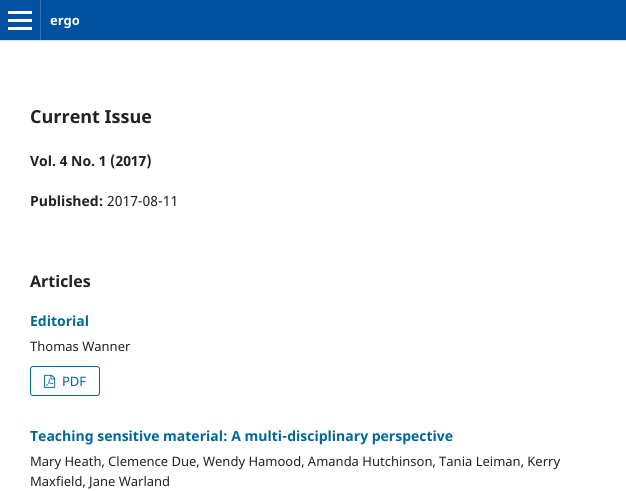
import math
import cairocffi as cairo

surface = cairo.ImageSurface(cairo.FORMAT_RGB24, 626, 491)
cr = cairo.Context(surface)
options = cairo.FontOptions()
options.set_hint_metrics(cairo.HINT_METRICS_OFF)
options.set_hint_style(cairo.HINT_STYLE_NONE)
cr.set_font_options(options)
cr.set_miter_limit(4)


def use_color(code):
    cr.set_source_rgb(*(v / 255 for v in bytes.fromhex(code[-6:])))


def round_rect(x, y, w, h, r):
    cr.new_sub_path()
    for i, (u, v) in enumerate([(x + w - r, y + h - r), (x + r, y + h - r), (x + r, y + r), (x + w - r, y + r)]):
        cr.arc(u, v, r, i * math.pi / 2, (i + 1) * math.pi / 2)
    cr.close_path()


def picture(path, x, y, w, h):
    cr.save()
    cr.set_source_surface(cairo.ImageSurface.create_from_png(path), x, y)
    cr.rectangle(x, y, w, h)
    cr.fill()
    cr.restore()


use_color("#ffffff")
cr.paint()
use_color("#0052a0")
cr.rectangle(0, 0, 626, 40)
cr.fill()
use_color("#dddddd")
cr.rectangle(0, 40, 626, 1)
cr.fill()
use_color("#3375b3")
cr.rectangle(40, 0, 1, 40)
cr.fill()
use_color("#ffffff")
cr.rectangle(8, 27, 24, 3)
cr.fill()
cr.rectangle(8, 11, 24, 3)
cr.fill()
cr.rectangle(8, 19, 24, 3)
cr.fill()
cr.select_font_face("Noto Sans", cairo.FONT_SLANT_NORMAL, cairo.FONT_WEIGHT_BOLD)
cr.set_font_size(13)
cr.move_to(50, 25)
cr.show_text("ergo")
cr.set_font_size(18)
use_color("#212121")
cr.move_to(30, 123)
cr.show_text("Current Issue")
cr.set_font_size(14)
cr.move_to(30, 166)
cr.show_text("Vol. 4 No. 1 (2017)")
cr.move_to(30, 206)
cr.show_text("Published:")
cr.select_font_face("Noto Sans")
cr.move_to(107, 206)
cr.show_text("2017-08-11")
cr.select_font_face("Noto Sans", cairo.FONT_SLANT_NORMAL, cairo.FONT_WEIGHT_BOLD)
cr.set_font_size(16)
cr.move_to(30, 287)
cr.show_text("Articles")
cr.set_font_size(14)
use_color("#006798")
cr.move_to(30, 326)
cr.show_text("Editorial")
cr.select_font_face("Noto Sans")
cr.set_font_size(13)
use_color("#212121")
cr.move_to(30, 351)
cr.show_text("Thomas Wanner")
round_rect(30.5, 366.5, 69, 29, 2.5)
use_color("#006798")
cr.set_line_width(1)
cr.stroke()
picture("img1.png", 44, 374, 12, 14)
cr.move_to(62, 386)
cr.show_text("PDF")
cr.select_font_face("Noto Sans", cairo.FONT_SLANT_NORMAL, cairo.FONT_WEIGHT_BOLD)
cr.set_font_size(14)
cr.move_to(30, 441)
cr.show_text("Teaching sensitive material: A multi-disciplinary perspective")
cr.select_font_face("Noto Sans")
cr.set_font_size(13)
use_color("#212121")
cr.move_to(30, 466)
cr.show_text("Mary Heath, Clemence Due, Wendy Hamood, Amanda Hutchinson, Tania Leiman, Kerry")
cr.move_to(30, 486)
cr.show_text("Maxfield, Jane Warland")
surface.write_to_png("result.png")
